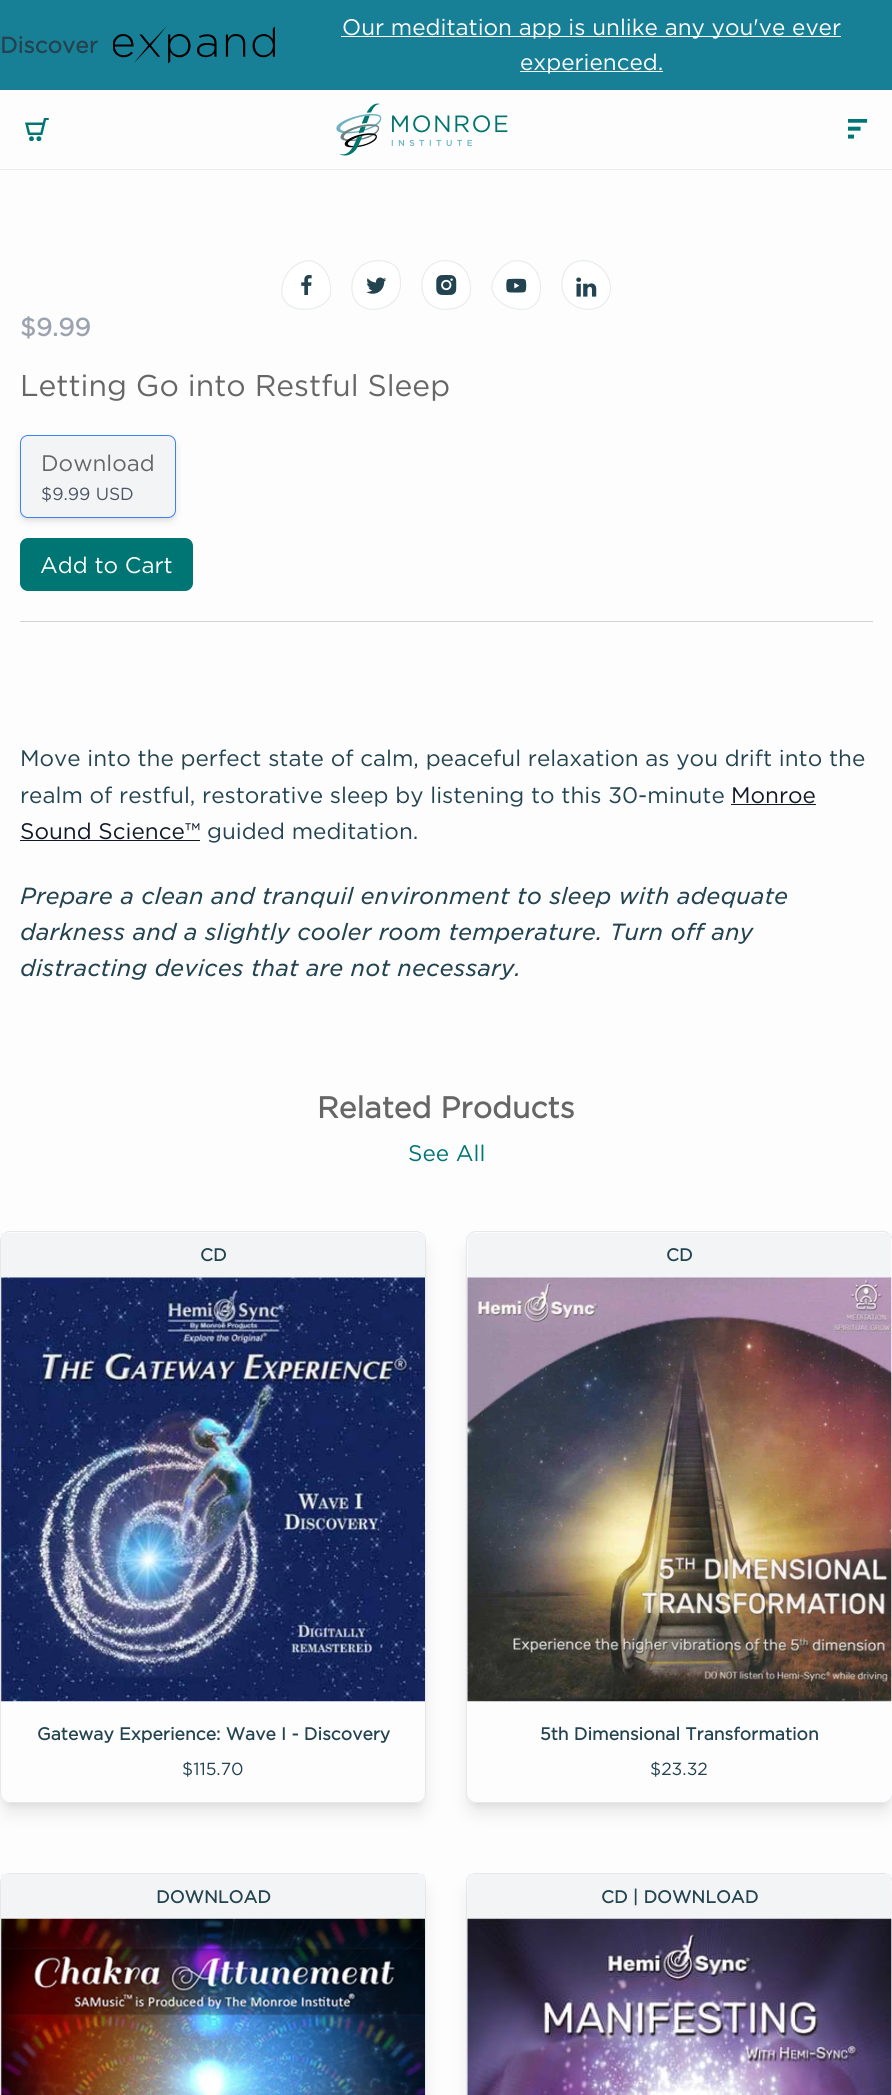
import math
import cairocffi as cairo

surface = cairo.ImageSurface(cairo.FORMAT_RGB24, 892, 2095)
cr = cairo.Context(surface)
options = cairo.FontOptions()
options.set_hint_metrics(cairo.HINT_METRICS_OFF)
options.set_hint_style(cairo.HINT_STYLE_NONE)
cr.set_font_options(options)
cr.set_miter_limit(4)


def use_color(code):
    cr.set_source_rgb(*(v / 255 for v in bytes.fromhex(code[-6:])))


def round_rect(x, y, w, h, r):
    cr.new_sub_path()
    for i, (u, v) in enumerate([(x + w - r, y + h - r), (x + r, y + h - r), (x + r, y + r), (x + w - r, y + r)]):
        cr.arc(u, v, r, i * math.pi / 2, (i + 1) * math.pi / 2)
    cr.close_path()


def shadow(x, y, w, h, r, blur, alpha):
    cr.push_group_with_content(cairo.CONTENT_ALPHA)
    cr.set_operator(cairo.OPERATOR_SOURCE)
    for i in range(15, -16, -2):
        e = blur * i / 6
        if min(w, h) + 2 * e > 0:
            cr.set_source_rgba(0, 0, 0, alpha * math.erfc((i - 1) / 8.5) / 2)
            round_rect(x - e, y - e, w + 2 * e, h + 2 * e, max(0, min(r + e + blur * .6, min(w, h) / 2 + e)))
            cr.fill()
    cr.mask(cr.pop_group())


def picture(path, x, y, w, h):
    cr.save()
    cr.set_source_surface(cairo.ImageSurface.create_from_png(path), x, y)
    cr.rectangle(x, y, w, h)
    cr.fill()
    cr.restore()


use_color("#fdfdfe")
cr.paint()
use_color("#188096")
cr.rectangle(0, 0, 892, 90)
cr.fill()
cr.select_font_face("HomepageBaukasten", cairo.FONT_SLANT_NORMAL, cairo.FONT_WEIGHT_BOLD)
cr.set_font_size(22.5)
use_color("#22434f")
cr.move_to(0, 53)
cr.show_text("Discover")
picture("img1.png", 113, 26, 162, 38)
use_color("#ffffff")
cr.rectangle(341, 36, 500, 1)
cr.fill()
cr.select_font_face("HomepageBaukasten")
cr.move_to(342, 35)
cr.show_text("Our meditation app is unlike any you've ever")
cr.rectangle(520, 71, 143, 1)
cr.fill()
cr.move_to(520, 70)
cr.show_text("experienced.")
use_color("#e8eced")
cr.rectangle(0, 169, 892, 1)
cr.fill()
picture("img2.png", 25, 118, 24, 23)
picture("img3.png", 336, 103, 172, 53)
picture("img4.png", 848, 119, 20, 20)
picture("img5.png", 281, 260, 50, 50)
picture("img6.png", 351, 260, 50, 50)
picture("img7.png", 421, 260, 50, 50)
picture("img8.png", 491, 260, 50, 50)
picture("img9.png", 561, 260, 50, 50)
cr.select_font_face("HomepageBaukasten", cairo.FONT_SLANT_NORMAL, cairo.FONT_WEIGHT_BOLD)
cr.set_font_size(25)
use_color("#9ca3af")
cr.move_to(20, 336)
cr.show_text("$9.99")
cr.select_font_face("HomepageBaukasten")
cr.set_font_size(30)
use_color("#666666")
cr.move_to(20, 396)
cr.show_text("Letting Go into Restful Sleep")
use_color("#000000")
shadow(23, 440, 151, 78, 5, 2.5, 0.1)
shadow(21, 441, 154, 80, 6, 4, 0.1)
use_color("#f3f4f6")
round_rect(20.5, 435.5, 155, 82, 7.5)
cr.fill_preserve()
use_color("#3b82f6")
cr.set_line_width(1)
cr.stroke()
cr.set_font_size(22.5)
use_color("#666666")
cr.move_to(41, 471)
cr.show_text("Download")
cr.set_font_size(17.5)
use_color("#4b5563")
cr.move_to(41, 500)
cr.show_text("$9.99 USD")
use_color("#007674")
round_rect(20, 538, 173, 53, 8)
cr.fill()
cr.set_font_size(22.5)
use_color("#ffffff")
cr.move_to(40, 573)
cr.show_text("Add to Cart")
use_color("#d2d2d2")
cr.rectangle(20, 621, 853, 1)
cr.fill()
use_color("#22434f")
cr.move_to(20, 766)
cr.show_text("Move into the perfect state of calm, peaceful relaxation as you drift into the")
cr.move_to(20, 803)
cr.show_text("realm of restful, restorative sleep by listening to this 30-minute")
use_color("#111827")
cr.move_to(731, 803)
cr.show_text("Monroe")
cr.rectangle(731, 804, 85, 1)
cr.fill()
cr.move_to(20, 839)
cr.show_text("Sound Science™")
cr.rectangle(20, 840, 180, 1)
cr.fill()
use_color("#22434f")
cr.move_to(207, 839)
cr.show_text("guided meditation.")
cr.select_font_face("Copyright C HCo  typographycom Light", cairo.FONT_SLANT_ITALIC)
cr.move_to(20, 904)
cr.show_text("Prepare a clean and tranquil environment to sleep with adequate")
cr.move_to(20, 940)
cr.show_text("darkness and a slightly cooler room temperature. Turn off any")
cr.move_to(20, 976)
cr.show_text("distracting devices that are not necessary.")
cr.select_font_face("HomepageBaukasten", cairo.FONT_SLANT_NORMAL, cairo.FONT_WEIGHT_BOLD)
cr.set_font_size(30)
use_color("#666666")
cr.move_to(317, 1118)
cr.show_text("Related Products")
cr.select_font_face("HomepageBaukasten")
cr.set_font_size(22.5)
use_color("#007674")
cr.move_to(408, 1161)
cr.show_text("See All")
cr.save()
cr.set_fill_rule(cairo.FILL_RULE_EVEN_ODD)
cr.new_path()
cr.move_to(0, 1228)
cr.line_to(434, 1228)
cr.line_to(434, 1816)
cr.line_to(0, 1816)
cr.close_path()
cr.move_to(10, 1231)
cr.line_to(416, 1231)
cr.curve_to(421.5, 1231, 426, 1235.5, 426, 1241)
cr.line_to(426, 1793)
cr.curve_to(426, 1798.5, 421.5, 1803, 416, 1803)
cr.line_to(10, 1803)
cr.curve_to(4.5, 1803, 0, 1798.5, 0, 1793)
cr.line_to(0, 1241)
cr.curve_to(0, 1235.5, 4.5, 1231, 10, 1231)
cr.close_path()
cr.clip()
use_color("#000000")
shadow(5, 1241, 416, 562, 5, 4, 0.1)
cr.restore()
cr.save()
cr.set_fill_rule(cairo.FILL_RULE_EVEN_ODD)
cr.new_path()
cr.move_to(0, 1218)
cr.line_to(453, 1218)
cr.line_to(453, 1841)
cr.line_to(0, 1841)
cr.close_path()
cr.move_to(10, 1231)
cr.line_to(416, 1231)
cr.curve_to(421.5, 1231, 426, 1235.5, 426, 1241)
cr.line_to(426, 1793)
cr.curve_to(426, 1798.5, 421.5, 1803, 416, 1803)
cr.line_to(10, 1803)
cr.curve_to(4.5, 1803, 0, 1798.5, 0, 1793)
cr.line_to(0, 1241)
cr.curve_to(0, 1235.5, 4.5, 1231, 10, 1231)
cr.close_path()
cr.clip()
use_color("#000000")
shadow(4, 1248, 419, 563, 6, 9.5, 0.1)
cr.restore()
round_rect(0.5, 1231.5, 425, 571, 9.5)
use_color("#e5e7eb")
cr.stroke()
use_color("#f3f4f6")
cr.rectangle(1, 1233, 424, 45)
cr.fill()
cr.select_font_face("HomepageBaukasten", cairo.FONT_SLANT_NORMAL, cairo.FONT_WEIGHT_BOLD)
cr.set_font_size(17.5)
use_color("#22434f")
cr.move_to(200, 1261)
cr.show_text("CD")
picture("img10.png", 1, 1277, 424, 425)
cr.move_to(37, 1740)
cr.show_text("Gateway Experience: Wave I - Discovery")
cr.select_font_face("HomepageBaukasten")
cr.move_to(182, 1775)
cr.show_text("$115.70")
cr.save()
cr.set_fill_rule(cairo.FILL_RULE_EVEN_ODD)
cr.new_path()
cr.move_to(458, 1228)
cr.line_to(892, 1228)
cr.line_to(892, 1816)
cr.line_to(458, 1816)
cr.close_path()
cr.move_to(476, 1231)
cr.line_to(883, 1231)
cr.curve_to(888.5, 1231, 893, 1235.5, 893, 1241)
cr.line_to(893, 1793)
cr.curve_to(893, 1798.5, 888.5, 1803, 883, 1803)
cr.line_to(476, 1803)
cr.curve_to(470.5, 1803, 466, 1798.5, 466, 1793)
cr.line_to(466, 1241)
cr.curve_to(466, 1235.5, 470.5, 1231, 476, 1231)
cr.close_path()
cr.clip()
use_color("#000000")
shadow(471, 1241, 417, 562, 5, 4, 0.1)
cr.restore()
cr.save()
cr.set_fill_rule(cairo.FILL_RULE_EVEN_ODD)
cr.new_path()
cr.move_to(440, 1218)
cr.line_to(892, 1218)
cr.line_to(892, 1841)
cr.line_to(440, 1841)
cr.close_path()
cr.move_to(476, 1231)
cr.line_to(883, 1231)
cr.curve_to(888.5, 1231, 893, 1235.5, 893, 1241)
cr.line_to(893, 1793)
cr.curve_to(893, 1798.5, 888.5, 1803, 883, 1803)
cr.line_to(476, 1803)
cr.curve_to(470.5, 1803, 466, 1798.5, 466, 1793)
cr.line_to(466, 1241)
cr.curve_to(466, 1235.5, 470.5, 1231, 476, 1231)
cr.close_path()
cr.clip()
use_color("#000000")
shadow(470, 1248, 419, 563, 6, 9.5, 0.1)
cr.restore()
round_rect(466.5, 1231.5, 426, 571, 9.5)
use_color("#e5e7eb")
cr.stroke()
use_color("#f3f4f6")
cr.rectangle(468, 1233, 423, 45)
cr.fill()
cr.select_font_face("HomepageBaukasten", cairo.FONT_SLANT_NORMAL, cairo.FONT_WEIGHT_BOLD)
use_color("#22434f")
cr.move_to(666, 1261)
cr.show_text("CD")
picture("img11.png", 467, 1277, 425, 425)
cr.move_to(540, 1740)
cr.show_text("5th Dimensional Transformation")
cr.select_font_face("HomepageBaukasten")
cr.move_to(650, 1775)
cr.show_text("$23.32")
use_color("#000000")
shadow(4, 1889, 419, 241, 6, 9.5, 0.1)
round_rect(0.5, 1873.5, 425, 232, 9.5)
use_color("#e5e7eb")
cr.stroke()
use_color("#f3f4f6")
cr.rectangle(1, 1874, 424, 45)
cr.fill()
cr.select_font_face("HomepageBaukasten", cairo.FONT_SLANT_NORMAL, cairo.FONT_WEIGHT_BOLD)
use_color("#22434f")
cr.move_to(156, 1903)
cr.show_text("DOWNLOAD")
picture("img12.png", 1, 1918, 424, 177)
use_color("#000000")
shadow(470, 1889, 419, 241, 6, 9.5, 0.1)
round_rect(466.5, 1873.5, 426, 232, 9.5)
use_color("#e5e7eb")
cr.stroke()
use_color("#f3f4f6")
cr.rectangle(468, 1874, 423, 45)
cr.fill()
use_color("#22434f")
cr.move_to(601, 1903)
cr.show_text("CD | DOWNLOAD")
picture("img13.png", 467, 1918, 425, 177)
surface.write_to_png("result.png")
